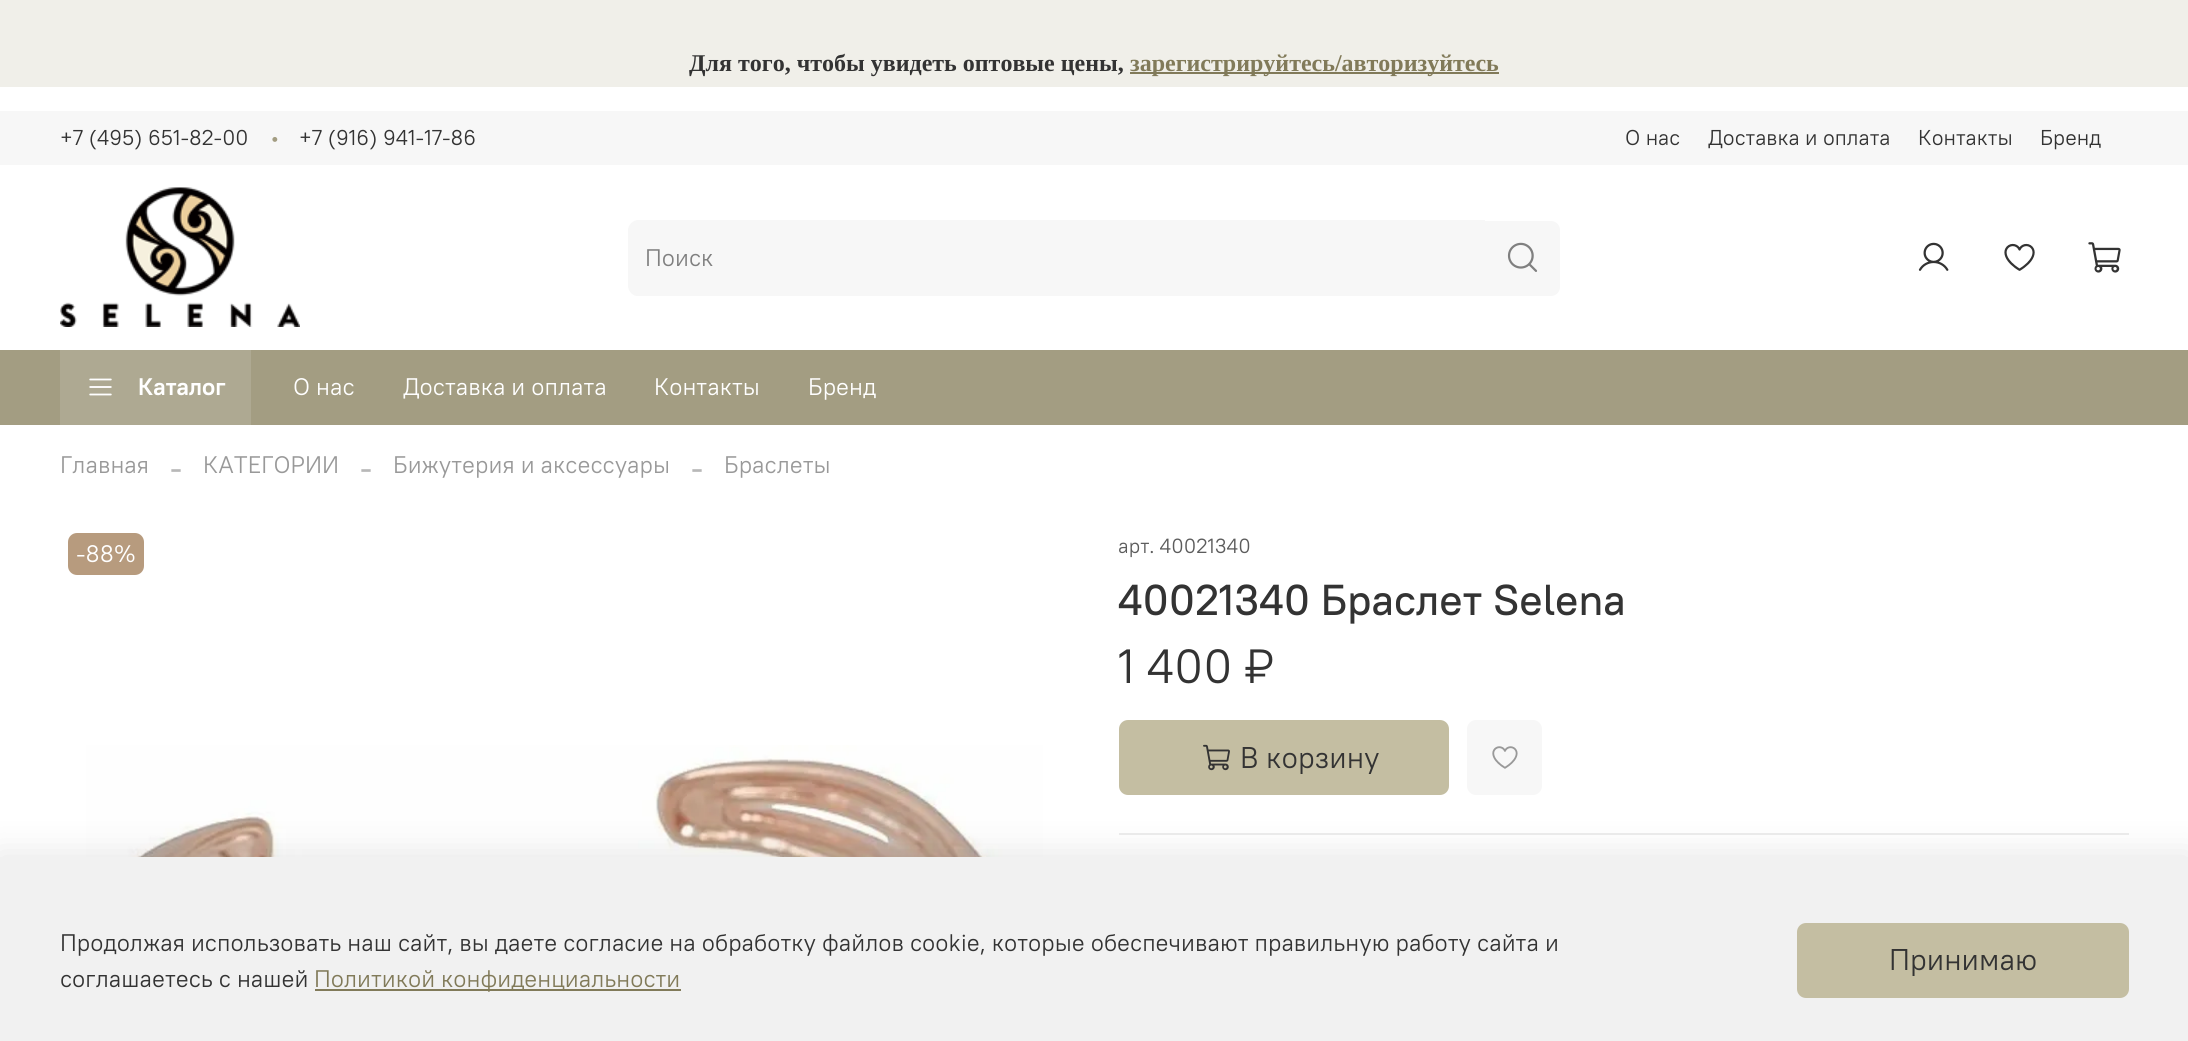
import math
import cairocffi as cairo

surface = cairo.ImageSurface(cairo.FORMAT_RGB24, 2188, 1041)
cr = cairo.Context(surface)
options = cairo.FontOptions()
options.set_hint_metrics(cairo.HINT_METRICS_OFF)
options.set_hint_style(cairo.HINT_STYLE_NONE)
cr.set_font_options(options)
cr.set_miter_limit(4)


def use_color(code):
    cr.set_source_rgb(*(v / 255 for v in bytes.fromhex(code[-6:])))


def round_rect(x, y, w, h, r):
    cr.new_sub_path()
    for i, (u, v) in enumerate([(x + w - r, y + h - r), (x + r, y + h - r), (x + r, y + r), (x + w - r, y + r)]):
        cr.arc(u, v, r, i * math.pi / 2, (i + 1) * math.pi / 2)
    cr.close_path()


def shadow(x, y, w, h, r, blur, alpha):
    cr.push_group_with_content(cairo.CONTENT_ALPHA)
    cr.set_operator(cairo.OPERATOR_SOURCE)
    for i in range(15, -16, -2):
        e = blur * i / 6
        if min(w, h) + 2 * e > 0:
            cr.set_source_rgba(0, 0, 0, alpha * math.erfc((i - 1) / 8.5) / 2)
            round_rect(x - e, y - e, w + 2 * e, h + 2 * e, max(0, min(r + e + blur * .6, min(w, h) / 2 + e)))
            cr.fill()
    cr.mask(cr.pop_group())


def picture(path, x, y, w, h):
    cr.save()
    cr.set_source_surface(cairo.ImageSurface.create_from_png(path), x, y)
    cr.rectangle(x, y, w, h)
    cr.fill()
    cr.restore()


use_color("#ffffff")
cr.paint()
use_color("#f0efe9")
cr.rectangle(0, 0, 2188, 87)
cr.fill()
cr.select_font_face("Liberation Serif", cairo.FONT_SLANT_NORMAL, cairo.FONT_WEIGHT_BOLD)
cr.set_font_size(24)
use_color("#333333")
cr.move_to(689, 71)
cr.show_text("Для того, чтобы увидеть оптовые цены,")
use_color("#817a59")
cr.rectangle(1130, 72, 369, 2)
cr.fill()
cr.move_to(1130, 71)
cr.show_text("зарегистрируйтесь/авторизуйтесь")
use_color("#f7f7f7")
cr.rectangle(0, 111, 2188, 54)
cr.fill()
cr.select_font_face("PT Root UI")
cr.set_font_size(21.5)
use_color("#333333")
cr.move_to(60, 145)
cr.show_text("+7 (495) 651-82-00")
use_color("#a39d82")
cr.move_to(270, 145)
cr.show_text("•")
use_color("#333333")
cr.move_to(299, 145)
cr.show_text("+7 (916) 941-17-86")
cr.move_to(1625, 145)
cr.show_text("О нас")
cr.move_to(1708, 145)
cr.show_text("Доставка и оплата")
cr.move_to(1918, 145)
cr.show_text("Контакты")
cr.move_to(2040, 145)
cr.show_text("Бренд")
picture("img1.png", 60, 187, 240, 140)
use_color("#f7f7f7")
cr.new_path()
cr.move_to(638, 221)
cr.line_to(1485, 221)
cr.line_to(1485, 296)
cr.line_to(638, 296)
cr.curve_to(633, 296, 629, 292, 629, 287)
cr.line_to(629, 230)
cr.curve_to(629, 225, 633, 221, 638, 221)
cr.close_path()
cr.fill()
cr.set_fill_rule(cairo.FILL_RULE_EVEN_ODD)
cr.new_path()
cr.move_to(638, 220)
cr.line_to(1485, 220)
cr.line_to(1485, 296)
cr.line_to(638, 296)
cr.curve_to(633, 296, 628, 291, 628, 286)
cr.line_to(628, 230)
cr.curve_to(628, 225, 633, 220, 638, 220)
cr.close_path()
cr.move_to(638, 222)
cr.line_to(1485, 222)
cr.line_to(1485, 294)
cr.line_to(638, 294)
cr.curve_to(633, 294, 630, 291, 630, 286)
cr.line_to(630, 230)
cr.curve_to(630, 225, 633, 222, 638, 222)
cr.close_path()
cr.fill()
cr.set_font_size(24)
use_color("#808080")
cr.move_to(645, 266)
cr.show_text("Поиск")
use_color("#f7f7f7")
cr.new_path()
cr.move_to(1485, 221)
cr.line_to(1551, 221)
cr.curve_to(1556, 221, 1560, 225, 1560, 230)
cr.line_to(1560, 287)
cr.curve_to(1560, 292, 1556, 296, 1551, 296)
cr.line_to(1485, 296)
cr.close_path()
cr.fill()
picture("img2.png", 1507, 242, 31, 30)
picture("img3.png", 1918, 242, 31, 29)
picture("img4.png", 2004, 243, 31, 28)
picture("img5.png", 2088, 242, 33, 31)
use_color("#a39d82")
cr.rectangle(0, 350, 2188, 75)
cr.fill()
use_color("#aea992")
cr.rectangle(60, 350, 191, 75)
cr.fill()
picture("img6.png", 89, 378, 23, 18)
cr.select_font_face("PT Root UI", cairo.FONT_SLANT_NORMAL, cairo.FONT_WEIGHT_BOLD)
use_color("#ffffff")
cr.move_to(138, 395)
cr.show_text("Каталог")
cr.select_font_face("PT Root UI")
cr.move_to(293, 395)
cr.show_text("О нас")
cr.move_to(403, 395)
cr.show_text("Доставка и оплата")
cr.move_to(654, 395)
cr.show_text("Контакты")
cr.move_to(808, 395)
cr.show_text("Бренд")
use_color("#999999")
cr.move_to(60, 473)
cr.show_text("Главная")
cr.select_font_face("Liberation Serif")
cr.set_font_size(36)
use_color("#b8b8b8")
cr.move_to(170, 479)
cr.show_text("-")
cr.select_font_face("PT Root UI")
cr.set_font_size(24)
use_color("#999999")
cr.move_to(203, 473)
cr.show_text("КАТЕГОРИИ")
cr.select_font_face("Liberation Serif")
cr.set_font_size(36)
use_color("#b8b8b8")
cr.move_to(360, 479)
cr.show_text("-")
cr.select_font_face("PT Root UI")
cr.set_font_size(24)
use_color("#999999")
cr.move_to(393, 473)
cr.show_text("Бижутерия и аксессуары")
cr.select_font_face("Liberation Serif")
cr.set_font_size(36)
use_color("#b8b8b8")
cr.move_to(691, 479)
cr.show_text("-")
cr.select_font_face("PT Root UI")
cr.set_font_size(24)
use_color("#999999")
cr.move_to(724, 473)
cr.show_text("Браслеты")
use_color("#b79b7e")
round_rect(68, 533, 76, 42, 9)
cr.fill()
use_color("#ffffff")
cr.move_to(76, 562)
cr.show_text("-88%")
picture("img7.png", 86, 745, 957, 112)
cr.set_font_size(20.5)
use_color("#5c5c5c")
cr.move_to(1118, 553)
cr.show_text("арт. 40021340")
cr.select_font_face("PT Root UI Medium")
cr.set_font_size(43.25)
use_color("#333333")
cr.move_to(1118, 615)
cr.show_text("40021340 Браслет Selena")
cr.select_font_face("PT Root UI")
cr.set_font_size(48)
cr.move_to(1118, 683)
cr.show_text("1 400 ₽")
use_color("#c4bea2")
round_rect(1119, 720, 330, 75, 9)
cr.fill()
picture("img8.png", 1203, 744, 27, 27)
cr.set_font_size(30)
use_color("#333333")
cr.move_to(1240, 768)
cr.show_text("В корзину")
use_color("#f7f7f7")
round_rect(1467, 720, 75, 75, 9)
cr.fill()
picture("img9.png", 1492, 746, 26, 23)
use_color("#ededed")
cr.rectangle(1119, 833, 1010, 2)
cr.fill()
use_color("#000000")
shadow(-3, 852, 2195, 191, 0, 17, 0.09)
use_color("#f1f1f1")
cr.rectangle(0, 857, 2188, 184)
cr.fill()
cr.set_font_size(24)
use_color("#333333")
cr.move_to(60, 951)
cr.show_text("Продолжая использовать наш сайт, вы даете согласие на обработку файлов cookie, которые обеспечивают правильную работу сайта и")
cr.move_to(60, 987)
cr.show_text("соглашаетесь с нашей")
use_color("#817a59")
cr.rectangle(315, 989, 366, 2)
cr.fill()
cr.move_to(314, 987)
cr.show_text("Политикой конфиденциальности")
use_color("#c4bea2")
round_rect(1797, 923, 332, 75, 9)
cr.fill()
cr.set_font_size(30)
use_color("#333333")
cr.move_to(1889, 970)
cr.show_text("Принимаю")
surface.write_to_png("result.png")
